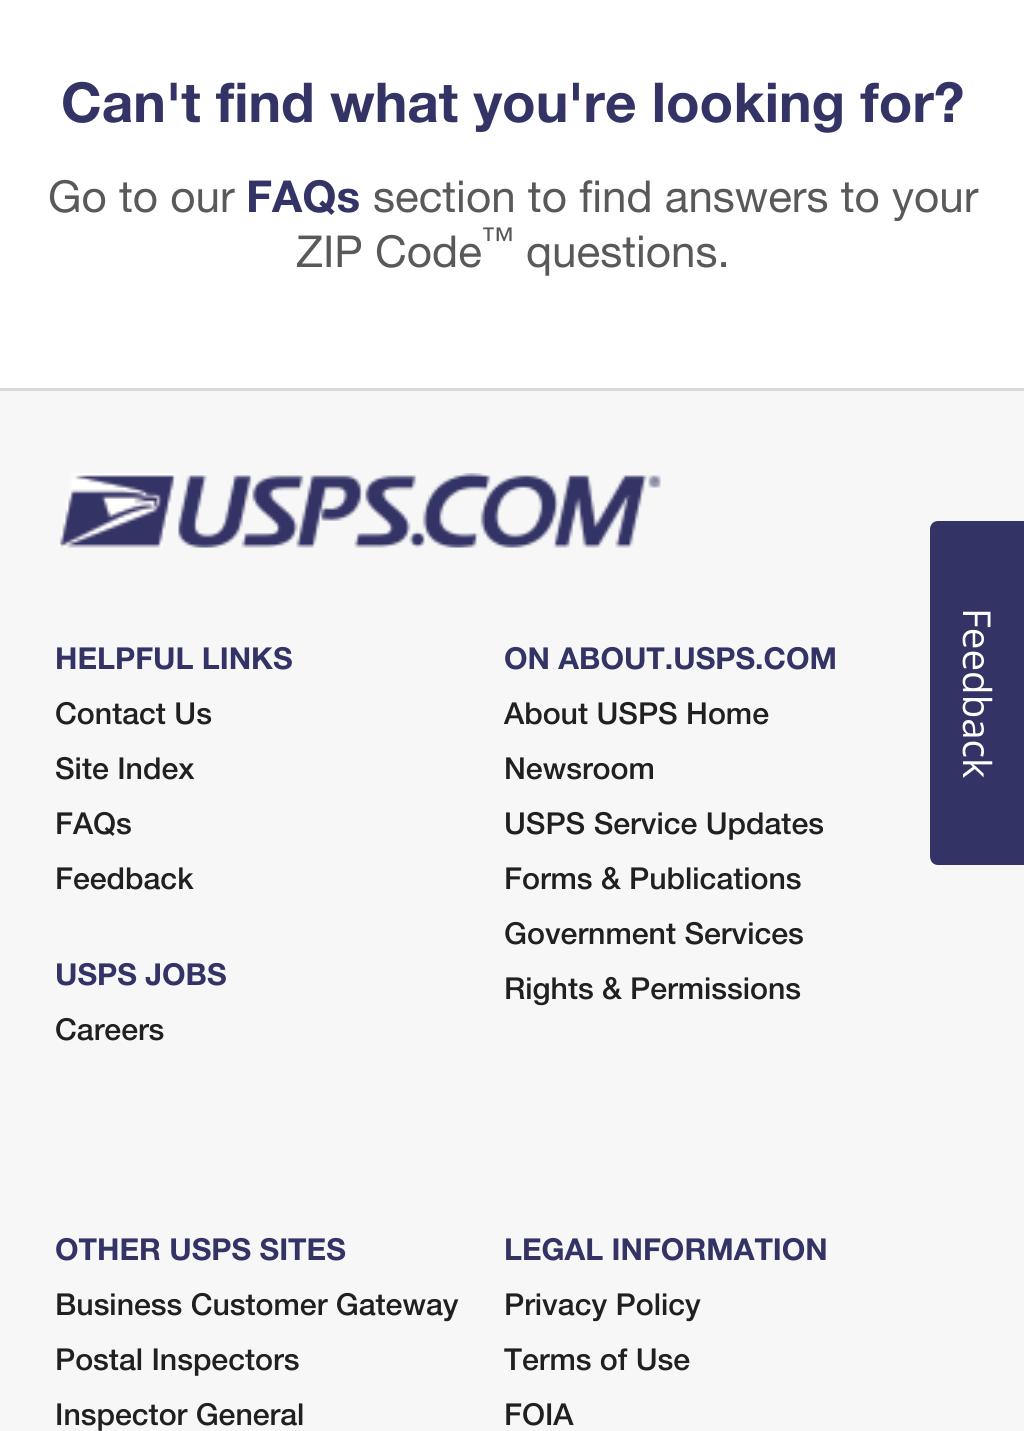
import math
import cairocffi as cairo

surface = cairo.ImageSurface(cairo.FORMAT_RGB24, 1024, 1431)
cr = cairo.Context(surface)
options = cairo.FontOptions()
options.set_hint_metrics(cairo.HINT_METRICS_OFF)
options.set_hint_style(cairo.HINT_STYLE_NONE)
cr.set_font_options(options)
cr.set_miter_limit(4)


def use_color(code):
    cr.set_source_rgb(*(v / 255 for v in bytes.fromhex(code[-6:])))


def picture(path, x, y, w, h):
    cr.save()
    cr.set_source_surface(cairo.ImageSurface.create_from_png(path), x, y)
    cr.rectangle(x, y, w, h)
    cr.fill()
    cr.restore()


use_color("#ffffff")
cr.paint()
cr.select_font_face("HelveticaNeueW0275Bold", cairo.FONT_SLANT_NORMAL, cairo.FONT_WEIGHT_BOLD)
cr.set_font_size(55)
use_color("#333366")
cr.move_to(61, 122)
cr.show_text("Can't find what you're looking for?")
cr.select_font_face("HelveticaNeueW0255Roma")
cr.set_font_size(44)
use_color("#595959")
cr.move_to(48, 212)
cr.show_text("Go to our")
cr.select_font_face("HelveticaNeueW0275Bold", cairo.FONT_SLANT_NORMAL, cairo.FONT_WEIGHT_BOLD)
use_color("#333366")
cr.move_to(246, 212)
cr.show_text("FAQs")
cr.select_font_face("HelveticaNeueW0255Roma")
use_color("#595959")
cr.move_to(373, 212)
cr.show_text("section to find answers to your")
cr.move_to(296, 267)
cr.show_text("ZIP Code")
cr.set_font_size(33)
cr.move_to(481, 251)
cr.show_text("™")
cr.set_font_size(44)
cr.move_to(526, 267)
cr.show_text("questions.")
use_color("#f7f7f7")
cr.rectangle(0, 391, 1024, 1040)
cr.fill()
use_color("#dadada")
cr.rectangle(0, 388, 1024, 3)
cr.fill()
picture("img1.png", 58, 473, 603, 75)
cr.select_font_face("HelveticaNeueW0275Bold", cairo.FONT_SLANT_NORMAL, cairo.FONT_WEIGHT_BOLD)
cr.set_font_size(30.25)
use_color("#333366")
cr.move_to(55, 669)
cr.show_text("HELPFUL LINKS")
cr.select_font_face("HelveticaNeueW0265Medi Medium")
use_color("#202020")
cr.move_to(55, 724)
cr.show_text("Contact Us")
cr.move_to(55, 779)
cr.show_text("Site Index")
cr.move_to(55, 834)
cr.show_text("FAQs")
cr.move_to(55, 889)
cr.show_text("Feedback")
cr.select_font_face("HelveticaNeueW0275Bold", cairo.FONT_SLANT_NORMAL, cairo.FONT_WEIGHT_BOLD)
use_color("#333366")
cr.move_to(55, 985)
cr.show_text("USPS JOBS")
cr.select_font_face("HelveticaNeueW0265Medi Medium")
use_color("#202020")
cr.move_to(55, 1040)
cr.show_text("Careers")
cr.select_font_face("HelveticaNeueW0275Bold", cairo.FONT_SLANT_NORMAL, cairo.FONT_WEIGHT_BOLD)
use_color("#333366")
cr.move_to(504, 669)
cr.show_text("ON ABOUT.USPS.COM")
cr.select_font_face("HelveticaNeueW0265Medi Medium")
use_color("#202020")
cr.move_to(504, 724)
cr.show_text("About USPS Home")
cr.move_to(504, 779)
cr.show_text("Newsroom")
cr.move_to(504, 834)
cr.show_text("USPS Service Updates")
cr.move_to(504, 889)
cr.show_text("Forms & Publications")
cr.move_to(504, 944)
cr.show_text("Government Services")
cr.move_to(504, 999)
cr.show_text("Rights & Permissions")
cr.select_font_face("HelveticaNeueW0275Bold", cairo.FONT_SLANT_NORMAL, cairo.FONT_WEIGHT_BOLD)
use_color("#333366")
cr.move_to(55, 1260)
cr.show_text("OTHER USPS SITES")
cr.select_font_face("HelveticaNeueW0265Medi Medium")
use_color("#202020")
cr.move_to(55, 1315)
cr.show_text("Business Customer Gateway")
cr.move_to(55, 1370)
cr.show_text("Postal Inspectors")
cr.move_to(55, 1425)
cr.show_text("Inspector General")
cr.select_font_face("HelveticaNeueW0275Bold", cairo.FONT_SLANT_NORMAL, cairo.FONT_WEIGHT_BOLD)
use_color("#333366")
cr.move_to(504, 1260)
cr.show_text("LEGAL INFORMATION")
cr.select_font_face("HelveticaNeueW0265Medi Medium")
use_color("#202020")
cr.move_to(504, 1315)
cr.show_text("Privacy Policy")
cr.move_to(504, 1370)
cr.show_text("Terms of Use")
cr.move_to(504, 1425)
cr.show_text("FOIA")
use_color("#333366")
cr.new_path()
cr.move_to(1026, 521)
cr.line_to(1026, 865)
cr.line_to(938, 865)
cr.curve_to(933, 865, 930, 861, 930, 856)
cr.line_to(930, 529)
cr.curve_to(930, 525, 933, 521, 938, 521)
cr.close_path()
cr.fill()
cr.select_font_face("Open Sans")
cr.set_font_size(38.5)
use_color("#ffffff")
cr.save()
cr.translate(963, 608)
cr.rotate(90 * math.pi / 180)
cr.move_to(0, 0)
cr.show_text("Feedback")
cr.restore()
surface.write_to_png("result.png")
